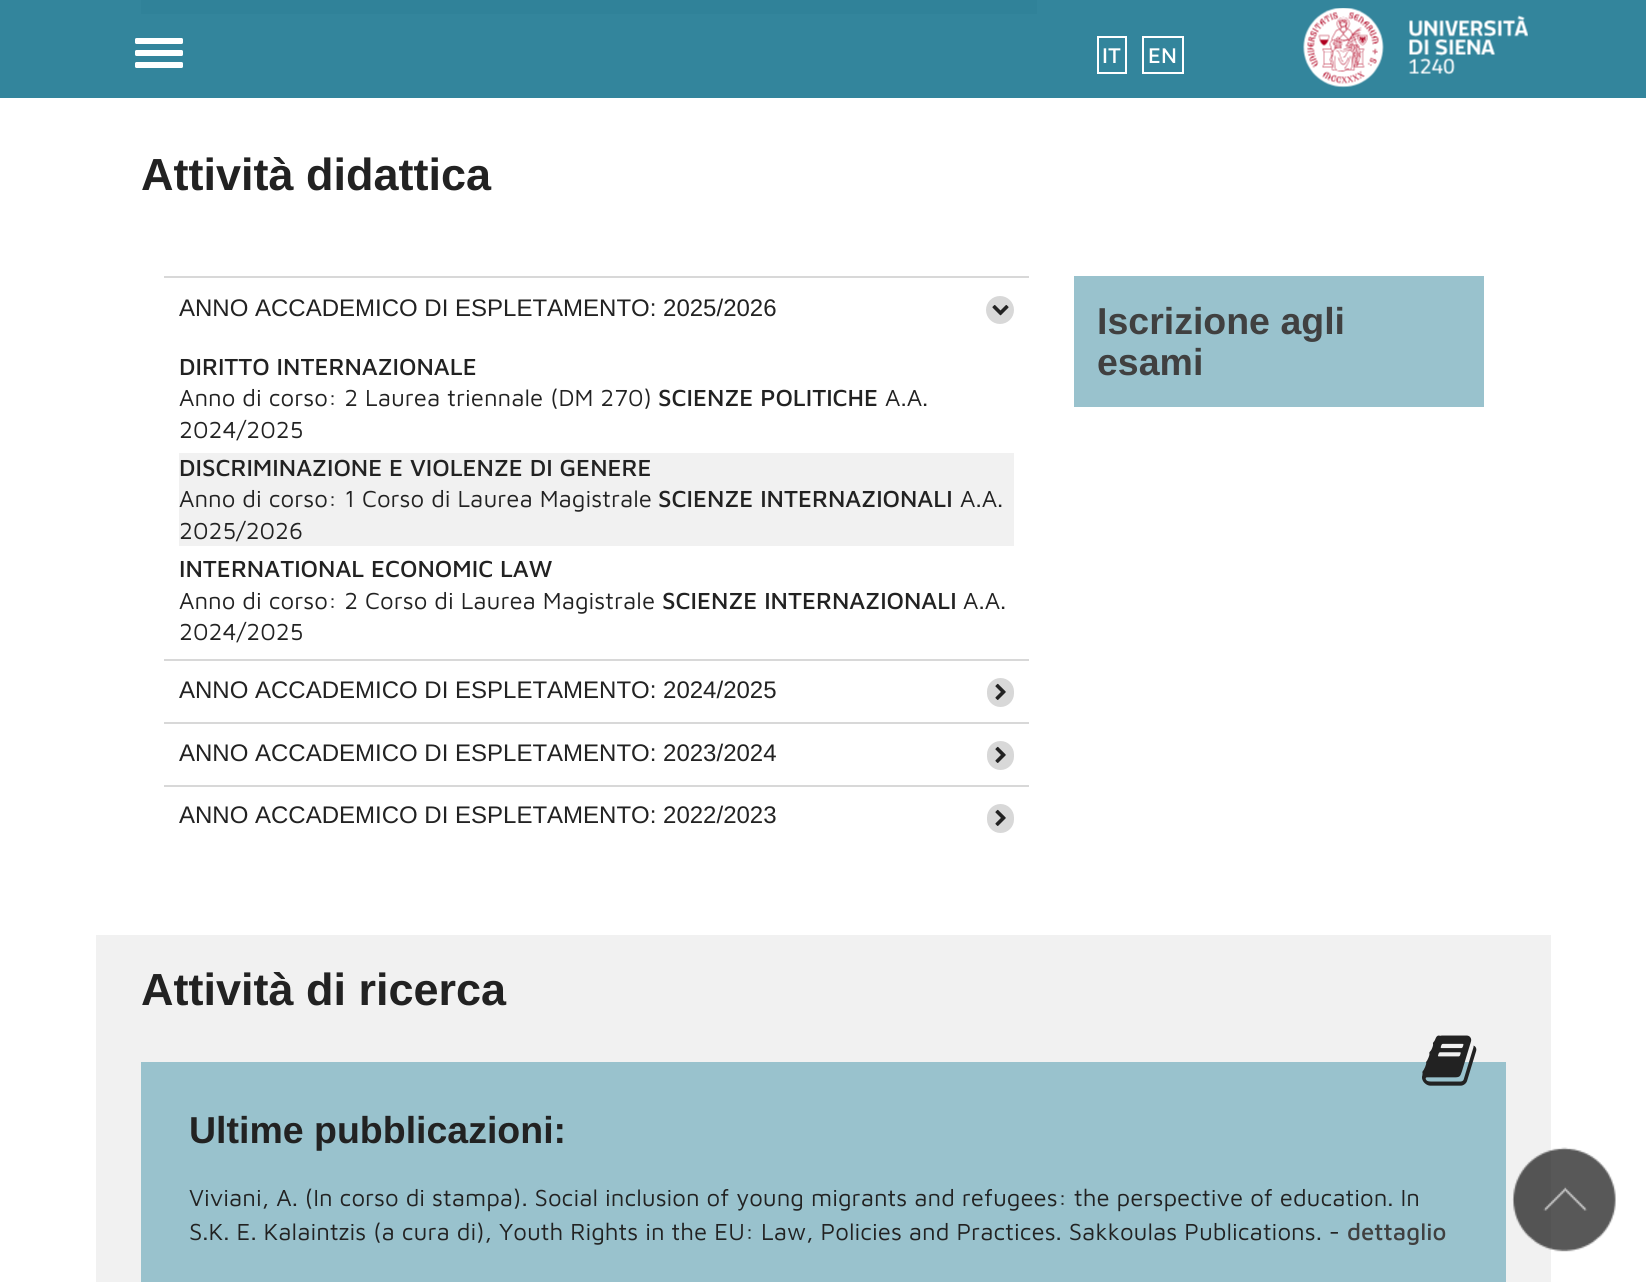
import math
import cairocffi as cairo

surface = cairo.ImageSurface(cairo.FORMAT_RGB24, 1646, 1282)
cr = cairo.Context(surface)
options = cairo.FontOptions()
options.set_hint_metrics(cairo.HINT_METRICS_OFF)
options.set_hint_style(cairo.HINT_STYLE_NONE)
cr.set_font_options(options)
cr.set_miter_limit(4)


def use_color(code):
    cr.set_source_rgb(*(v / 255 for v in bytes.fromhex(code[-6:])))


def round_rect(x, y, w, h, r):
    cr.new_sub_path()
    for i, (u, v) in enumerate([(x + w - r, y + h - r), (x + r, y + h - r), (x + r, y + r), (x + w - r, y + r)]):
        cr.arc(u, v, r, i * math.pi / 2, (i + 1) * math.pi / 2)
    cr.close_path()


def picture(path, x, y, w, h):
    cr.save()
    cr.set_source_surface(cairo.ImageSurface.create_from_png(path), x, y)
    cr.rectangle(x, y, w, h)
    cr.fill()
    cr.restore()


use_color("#ffffff")
cr.paint()
use_color("#33859c")
cr.rectangle(0, 0, 1646, 98)
cr.fill()
picture("img1.png", 1303, 8, 225, 80)
use_color("#ffffff")
round_rect(135, 38, 48, 6, 1.5)
cr.fill()
round_rect(135, 50, 48, 6, 1.5)
cr.fill()
round_rect(135, 62, 48, 6, 1.5)
cr.fill()
cr.rectangle(1098, 37, 28, 36)
cr.stroke()
cr.select_font_face("Maven Pro Medium")
cr.set_font_size(22)
cr.move_to(1102, 63)
cr.show_text("IT")
cr.rectangle(1143, 37, 40, 36)
cr.stroke()
cr.move_to(1148, 63)
cr.show_text("EN")
use_color("#308299")
cr.rectangle(141, 0, 896, 14)
cr.fill()
cr.select_font_face("Liberation Sans", cairo.FONT_SLANT_NORMAL, cairo.FONT_WEIGHT_BOLD)
cr.set_font_size(45)
use_color("#222222")
cr.move_to(141, 190)
cr.show_text("Attività didattica")
use_color("#d8d8d8")
cr.rectangle(164, 276, 865, 2)
cr.fill()
cr.select_font_face("Liberation Sans")
cr.set_font_size(24)
use_color("#222222")
cr.move_to(179, 316)
cr.show_text("ANNO ACCADEMICO DI ESPLETAMENTO: 2025/2026")
use_color("#d8d8d8")
cr.new_path()
cr.arc(1000, 310, 14, 0, 2 * math.pi)
cr.fill()
picture("img2.png", 992, 305, 17, 11)
cr.select_font_face("Maven Pro Medium")
use_color("#222222")
cr.move_to(179, 375)
cr.show_text("DIRITTO INTERNAZIONALE")
cr.select_font_face("Maven Pro")
cr.move_to(179, 406)
cr.show_text("Anno di corso: 2 Laurea triennale (DM 270)")
cr.select_font_face("Maven Pro Medium")
cr.move_to(658, 406)
cr.show_text("SCIENZE POLITICHE")
cr.select_font_face("Maven Pro")
cr.move_to(885, 406)
cr.show_text("A.A.")
cr.move_to(179, 438)
cr.show_text("2024/2025")
use_color("#f1f1f1")
cr.rectangle(179, 453, 835, 93)
cr.fill()
cr.select_font_face("Maven Pro Medium")
use_color("#222222")
cr.move_to(179, 476)
cr.show_text("DISCRIMINAZIONE E VIOLENZE DI GENERE")
cr.select_font_face("Maven Pro")
cr.move_to(179, 507)
cr.show_text("Anno di corso: 1 Corso di Laurea Magistrale")
cr.select_font_face("Maven Pro Medium")
cr.move_to(658, 507)
cr.show_text("SCIENZE INTERNAZIONALI")
cr.select_font_face("Maven Pro")
cr.move_to(960, 507)
cr.show_text("A.A.")
cr.move_to(179, 539)
cr.show_text("2025/2026")
cr.select_font_face("Maven Pro Medium")
cr.move_to(179, 577)
cr.show_text("INTERNATIONAL ECONOMIC LAW")
cr.select_font_face("Maven Pro")
cr.move_to(179, 609)
cr.show_text("Anno di corso: 2 Corso di Laurea Magistrale")
cr.select_font_face("Maven Pro Medium")
cr.move_to(662, 609)
cr.show_text("SCIENZE INTERNAZIONALI")
cr.select_font_face("Maven Pro")
cr.move_to(963, 609)
cr.show_text("A.A.")
cr.move_to(179, 640)
cr.show_text("2024/2025")
use_color("#d8d8d8")
cr.rectangle(164, 659, 865, 2)
cr.fill()
cr.select_font_face("Liberation Sans")
use_color("#222222")
cr.move_to(179, 698)
cr.show_text("ANNO ACCADEMICO DI ESPLETAMENTO: 2024/2025")
use_color("#d8d8d8")
round_rect(987, 678, 27, 29, 13.5)
cr.fill()
picture("img3.png", 995, 683, 11, 17)
cr.rectangle(164, 722, 865, 2)
cr.fill()
use_color("#222222")
cr.move_to(179, 761)
cr.show_text("ANNO ACCADEMICO DI ESPLETAMENTO: 2023/2024")
use_color("#d8d8d8")
round_rect(987, 741, 27, 29, 13.5)
cr.fill()
picture("img3.png", 995, 746, 11, 17)
cr.rectangle(164, 785, 865, 2)
cr.fill()
use_color("#222222")
cr.move_to(179, 823)
cr.show_text("ANNO ACCADEMICO DI ESPLETAMENTO: 2022/2023")
use_color("#d8d8d8")
round_rect(987, 804, 27, 29, 13.5)
cr.fill()
picture("img3.png", 995, 809, 11, 17)
use_color("#99c2cd")
cr.rectangle(1074, 276, 410, 131)
cr.fill()
cr.select_font_face("Liberation Sans", cairo.FONT_SLANT_NORMAL, cairo.FONT_WEIGHT_BOLD)
cr.set_font_size(37.5)
use_color("#404040")
cr.move_to(1097, 334)
cr.show_text("Iscrizione agli")
cr.move_to(1097, 375)
cr.show_text("esami")
use_color("#f1f1f1")
cr.rectangle(96, 935, 1455, 347)
cr.fill()
cr.set_font_size(45)
use_color("#222222")
cr.move_to(141, 1005)
cr.show_text("Attività di ricerca")
use_color("#99c2cd")
cr.rectangle(141, 1062, 1365, 220)
cr.fill()
picture("img4.png", 1422, 1035, 55, 51)
cr.set_font_size(37.5)
use_color("#222222")
cr.move_to(189, 1143)
cr.show_text("Ultime pubblicazioni:")
cr.select_font_face("Maven Pro")
cr.set_font_size(24)
cr.move_to(189, 1206)
cr.show_text("Viviani, A. (In corso di stampa). Social inclusion of young migrants and refugees: the perspective of education. In")
cr.move_to(189, 1240)
cr.show_text("S.K. E. Kalaintzis (a cura di), Youth Rights in the EU: Law, Policies and Practices. Sakkoulas Publications. -")
cr.select_font_face("Maven Pro Medium")
use_color("#404040")
cr.move_to(1347, 1240)
cr.show_text("dettaglio")
picture("img5.png", 1512, 1147, 104, 105)
surface.write_to_png("result.png")
